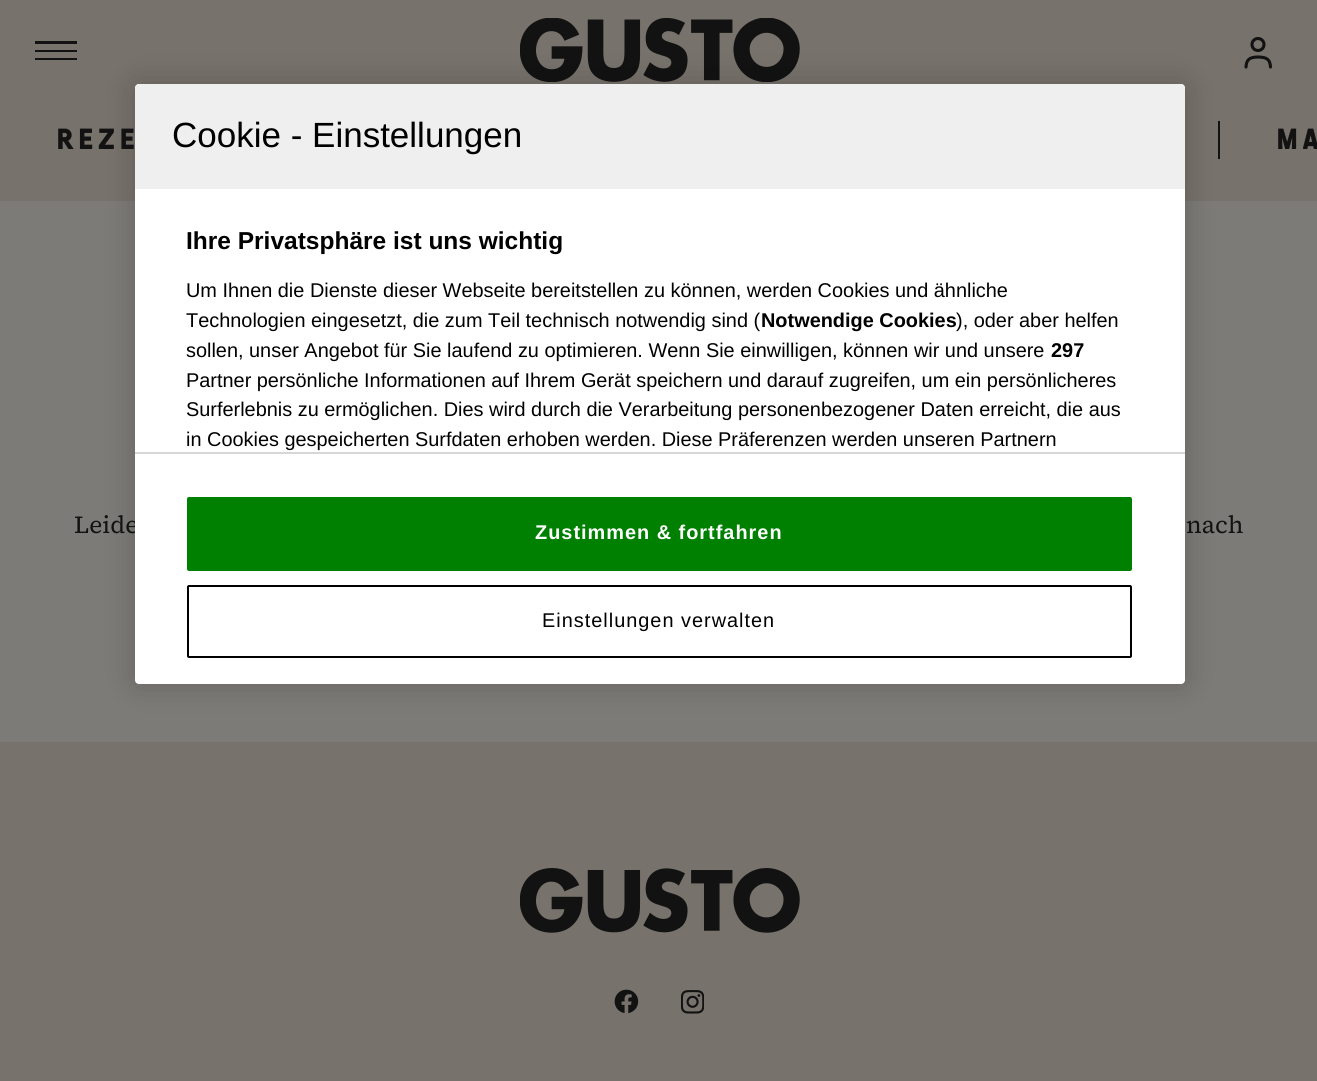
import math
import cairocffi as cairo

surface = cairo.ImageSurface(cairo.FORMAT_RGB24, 1317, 1081)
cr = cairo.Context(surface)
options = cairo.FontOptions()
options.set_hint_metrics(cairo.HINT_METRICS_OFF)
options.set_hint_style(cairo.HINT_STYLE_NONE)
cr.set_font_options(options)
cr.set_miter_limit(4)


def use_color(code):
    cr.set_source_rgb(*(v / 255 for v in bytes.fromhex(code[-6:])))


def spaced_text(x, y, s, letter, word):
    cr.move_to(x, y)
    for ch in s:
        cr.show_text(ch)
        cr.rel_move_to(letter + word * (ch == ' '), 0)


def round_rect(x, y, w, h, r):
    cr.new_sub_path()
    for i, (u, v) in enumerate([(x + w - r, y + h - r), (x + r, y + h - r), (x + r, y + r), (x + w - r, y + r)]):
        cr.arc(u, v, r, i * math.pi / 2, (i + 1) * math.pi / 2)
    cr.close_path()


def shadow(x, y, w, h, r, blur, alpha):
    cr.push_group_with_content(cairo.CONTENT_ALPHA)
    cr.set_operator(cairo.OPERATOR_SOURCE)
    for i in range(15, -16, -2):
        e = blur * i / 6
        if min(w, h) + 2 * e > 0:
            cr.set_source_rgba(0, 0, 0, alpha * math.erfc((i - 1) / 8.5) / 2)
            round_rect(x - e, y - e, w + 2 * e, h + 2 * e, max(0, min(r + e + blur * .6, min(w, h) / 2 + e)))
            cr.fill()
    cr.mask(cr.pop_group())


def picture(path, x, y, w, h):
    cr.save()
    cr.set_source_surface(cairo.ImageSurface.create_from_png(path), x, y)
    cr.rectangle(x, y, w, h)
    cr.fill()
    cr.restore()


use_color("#7d7b77")
cr.paint()
use_color("#77726b")
cr.rectangle(0, 0, 1317, 201)
cr.fill()
picture("img1.png", 520, 18, 280, 64)
use_color("#121212")
cr.rectangle(1218, 121, 2, 38)
cr.fill()
use_color("#000000")
shadow(135, 84, 1050, 600, 4, 16, 0.2)
cr.select_font_face("Source Serif 4")
cr.set_font_size(24.5)
use_color("#121212")
cr.move_to(74, 533)
cr.show_text("Leide")
use_color("#ffffff")
round_rect(135, 84, 1050, 600, 4)
cr.fill()
use_color("#efefef")
cr.new_path()
cr.move_to(139, 84)
cr.line_to(1181, 84)
cr.curve_to(1183, 84, 1185, 86, 1185, 88)
cr.line_to(1185, 189)
cr.line_to(135, 189)
cr.line_to(135, 88)
cr.curve_to(135, 86, 137, 84, 139, 84)
cr.close_path()
cr.fill()
cr.select_font_face("Liberation Sans")
cr.set_font_size(35)
use_color("#000000")
cr.move_to(172, 147)
cr.show_text("Cookie - Einstellungen")
cr.select_font_face("Liberation Sans", cairo.FONT_SLANT_NORMAL, cairo.FONT_WEIGHT_BOLD)
cr.set_font_size(24.5)
cr.move_to(186, 249)
cr.show_text("Ihre Privatsphäre ist uns wichtig")
cr.select_font_face("Liberation Sans")
cr.set_font_size(19.9)
cr.move_to(186, 297)
cr.show_text("Um Ihnen die Dienste dieser Webseite bereitstellen zu können, werden Cookies und ähnliche")
cr.move_to(186, 327)
cr.show_text("Technologien eingesetzt, die zum Teil technisch notwendig sind (")
cr.select_font_face("Liberation Sans", cairo.FONT_SLANT_NORMAL, cairo.FONT_WEIGHT_BOLD)
cr.move_to(761, 327)
cr.show_text("Notwendige Cookies")
cr.select_font_face("Liberation Sans")
cr.move_to(956, 327)
cr.show_text("), oder aber helfen")
cr.move_to(186, 357)
cr.show_text("sollen, unser Angebot für Sie laufend zu optimieren. Wenn Sie einwilligen, können wir und unsere")
cr.select_font_face("Liberation Sans", cairo.FONT_SLANT_NORMAL, cairo.FONT_WEIGHT_BOLD)
cr.move_to(1051, 357)
cr.show_text("297")
cr.select_font_face("Liberation Sans")
cr.move_to(186, 387)
cr.show_text("Partner persönliche Informationen auf Ihrem Gerät speichern und darauf zugreifen, um ein persönlicheres")
cr.move_to(186, 416)
cr.show_text("Surferlebnis zu ermöglichen. Dies wird durch die Verarbeitung personenbezogener Daten erreicht, die aus")
cr.move_to(186, 446)
cr.show_text("in Cookies gespeicherten Surfdaten erhoben werden. Diese Präferenzen werden unseren Partnern")
use_color("#d7d7d7")
cr.rectangle(135, 452, 1050, 2)
cr.fill()
use_color("#008000")
round_rect(188, 498, 943, 72, 1)
cr.fill_preserve()
cr.stroke()
cr.select_font_face("Liberation Sans", cairo.FONT_SLANT_NORMAL, cairo.FONT_WEIGHT_BOLD)
use_color("#ffffff")
spaced_text(535, 539, "Zustimmen & fortfahren", 1, 0)
round_rect(188, 586, 943, 71, 1)
use_color("#000000")
cr.stroke()
cr.select_font_face("Liberation Sans")
spaced_text(542, 627, "Einstellungen verwalten", 1, 0)
use_color("#121212")
cr.rectangle(35, 41, 42, 3)
cr.fill()
cr.rectangle(35, 50, 42, 2)
cr.fill()
cr.rectangle(35, 58, 42, 2)
cr.fill()
cr.arc(1258, 44.5, 6, 0, 2 * math.pi)
cr.set_line_width(3.1)
cr.stroke()
cr.new_path()
cr.move_to(1270.5, 67)
cr.curve_to(1270, 61, 1268.5, 57, 1258, 57)
cr.curve_to(1248, 57, 1246.5, 61, 1246, 67)
cr.set_line_cap(cairo.LINE_CAP_ROUND)
cr.stroke()
cr.select_font_face("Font", cairo.FONT_SLANT_NORMAL, cairo.FONT_WEIGHT_BOLD)
cr.set_font_size(28)
spaced_text(56, 149, "REZE", 5, 0)
spaced_text(1276, 149, "MA", 5, 0)
cr.select_font_face("Source Serif 4")
cr.set_font_size(24.5)
cr.move_to(1186, 533)
cr.show_text("nach")
use_color("#77726b")
cr.rectangle(0, 742, 1317, 339)
cr.fill()
picture("img2.png", 520, 868, 280, 65)
picture("img3.png", 614, 989, 25, 24)
picture("img4.png", 681, 990, 23, 24)
surface.write_to_png("result.png")
